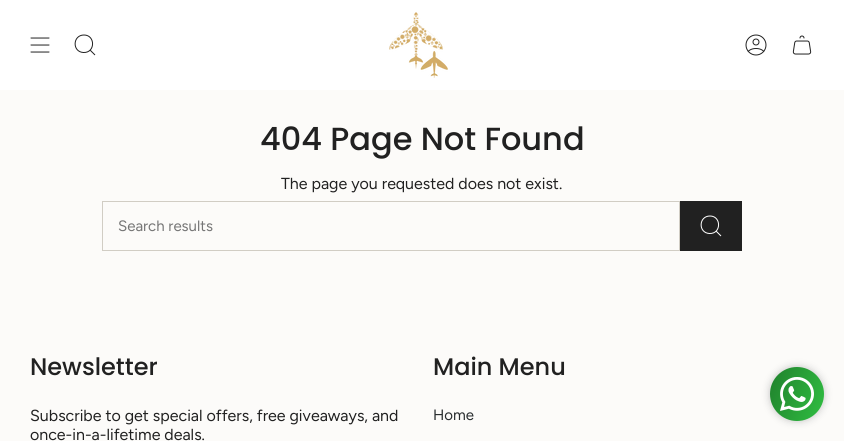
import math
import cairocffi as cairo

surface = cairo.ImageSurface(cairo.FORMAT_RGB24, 844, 441)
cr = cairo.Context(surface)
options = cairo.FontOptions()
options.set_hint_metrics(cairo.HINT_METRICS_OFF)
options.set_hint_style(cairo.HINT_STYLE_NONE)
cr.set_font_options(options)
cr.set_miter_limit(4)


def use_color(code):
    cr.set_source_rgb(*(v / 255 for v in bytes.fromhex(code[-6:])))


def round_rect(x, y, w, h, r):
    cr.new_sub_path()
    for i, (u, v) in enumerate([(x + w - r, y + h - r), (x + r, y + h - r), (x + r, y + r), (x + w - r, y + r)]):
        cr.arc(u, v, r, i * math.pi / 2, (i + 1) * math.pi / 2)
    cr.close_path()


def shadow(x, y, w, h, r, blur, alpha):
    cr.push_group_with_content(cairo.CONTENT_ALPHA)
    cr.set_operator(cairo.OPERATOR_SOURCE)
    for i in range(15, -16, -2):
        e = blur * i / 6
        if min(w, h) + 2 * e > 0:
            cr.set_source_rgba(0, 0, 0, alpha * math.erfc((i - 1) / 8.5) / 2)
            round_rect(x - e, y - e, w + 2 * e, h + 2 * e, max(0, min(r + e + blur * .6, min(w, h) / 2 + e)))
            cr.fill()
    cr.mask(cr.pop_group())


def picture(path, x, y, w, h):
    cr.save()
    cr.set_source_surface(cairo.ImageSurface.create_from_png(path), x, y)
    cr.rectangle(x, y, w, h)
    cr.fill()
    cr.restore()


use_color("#fcfbf9")
cr.paint()
use_color("#ffffff")
cr.rectangle(0, 0, 844, 90)
cr.fill()
cr.new_path()
cr.move_to(31, 38)
cr.line_to(49, 38)
cr.move_to(31, 45)
cr.line_to(49, 45)
cr.move_to(31, 52)
cr.line_to(49, 52)
use_color("#212121")
cr.set_line_width(1)
cr.set_line_cap(cairo.LINE_CAP_ROUND)
cr.set_line_join(cairo.LINE_JOIN_ROUND)
cr.stroke()
cr.new_path()
cr.move_to(84, 35)
cr.curve_to(95.5, 35, 95.5, 53, 83.5, 52.5)
cr.curve_to(72, 52, 72.5, 35, 84, 35)
cr.close_path()
cr.move_to(90, 50)
cr.line_to(95, 55)
cr.set_line_cap(cairo.LINE_CAP_BUTT)
cr.set_line_join(cairo.LINE_JOIN_MITER)
cr.stroke()
picture("img1.png", 389, 12, 59, 66)
picture("img2.png", 745, 34, 22, 22)
picture("img3.png", 792, 35, 20, 20)
cr.select_font_face("Poppins Medium")
cr.set_font_size(32)
cr.move_to(260, 150)
cr.show_text("404 Page Not Found")
cr.select_font_face("Figtree")
cr.set_font_size(16)
cr.move_to(281, 189)
cr.show_text("The page you requested does not exist.")
cr.rectangle(102.5, 201.5, 577, 49)
use_color("#d1cdc4")
cr.stroke()
cr.set_font_size(15)
use_color("#757575")
cr.move_to(118, 231)
cr.show_text("Search results")
use_color("#212121")
cr.rectangle(680, 201, 62, 50)
cr.fill()
cr.new_path()
cr.move_to(710, 216)
cr.curve_to(721.5, 216, 721.5, 234, 709.5, 233.5)
cr.curve_to(698, 233, 698.5, 216, 710, 216)
cr.close_path()
cr.move_to(716, 231)
cr.line_to(721, 236)
use_color("#ffffff")
cr.stroke()
cr.select_font_face("Poppins Medium")
cr.set_font_size(24)
use_color("#212121")
cr.move_to(30, 375)
cr.show_text("Newsletter")
cr.select_font_face("Figtree")
cr.set_font_size(16)
cr.move_to(30, 421)
cr.show_text("Subscribe to get special offers, free giveaways, and")
cr.move_to(30, 440)
cr.show_text("once-in-a-lifetime deals.")
cr.select_font_face("Poppins Medium")
cr.set_font_size(24)
cr.move_to(433, 375)
cr.show_text("Main Menu")
cr.select_font_face("Figtree")
cr.set_font_size(15)
use_color("#282c2e")
cr.move_to(433, 420)
cr.show_text("Home")
use_color("#c2c2c2")
shadow(770, 367, 54, 54, 27, 4, 1)
gradient = cairo.LinearGradient(764, 381, 830, 407)
gradient.add_color_stop_rgba(0, 0.125, 0.502, 0.173, 1)
gradient.add_color_stop_rgba(0, 0.125, 0.502, 0.173, 1)
gradient.add_color_stop_rgba(1, 0.188, 0.749, 0.259, 1)
cr.set_source(gradient)
cr.arc(797, 394, 27, 0, 2 * math.pi)
cr.fill()
picture("img4.png", 780, 377, 34, 34)
surface.write_to_png("result.png")
